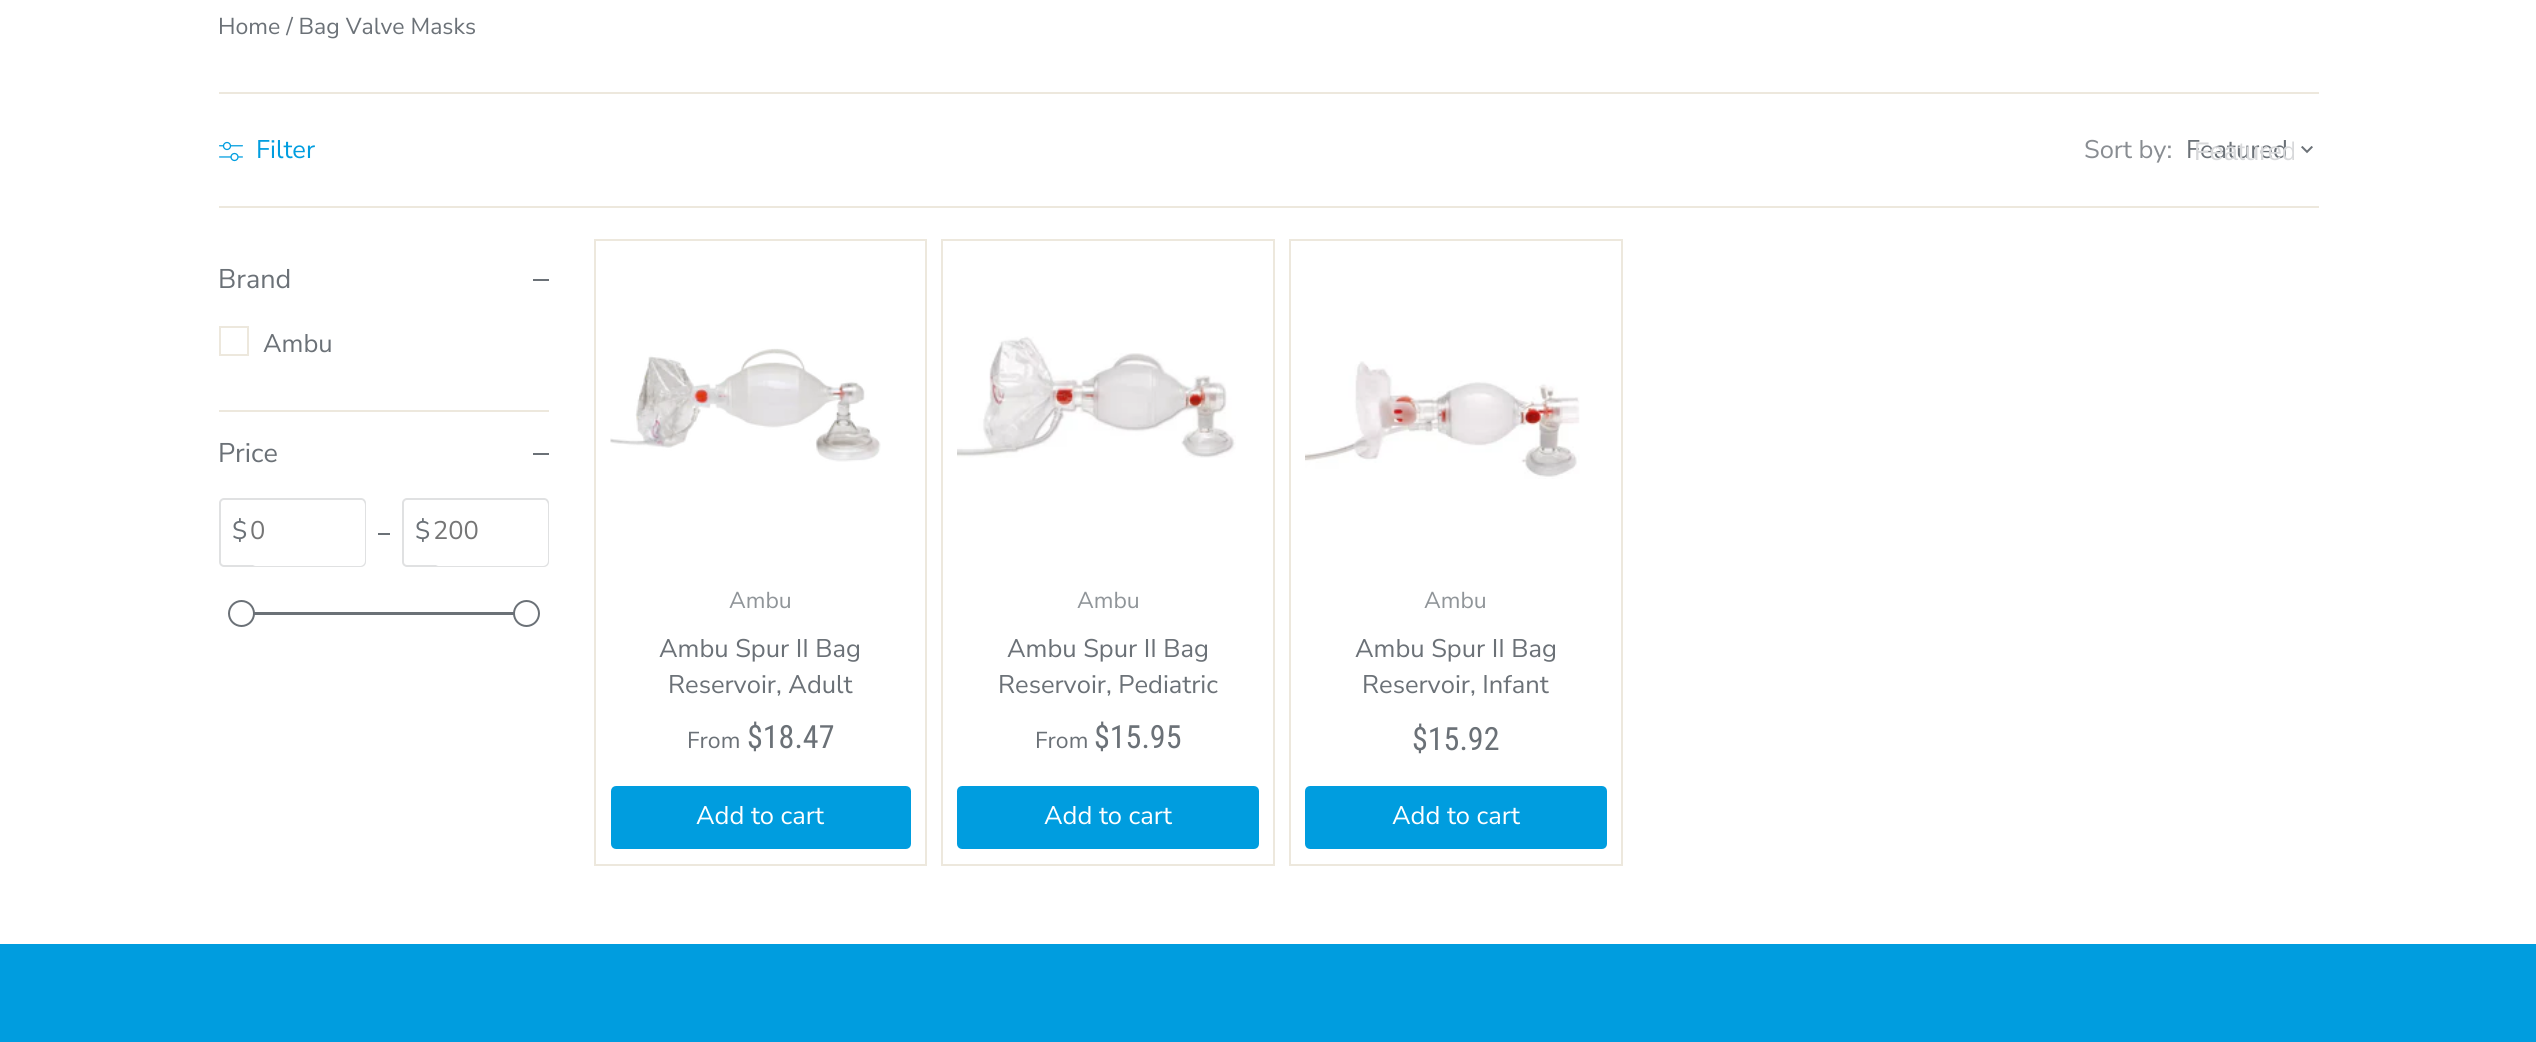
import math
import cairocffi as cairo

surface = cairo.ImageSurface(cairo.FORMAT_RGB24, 2536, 1042)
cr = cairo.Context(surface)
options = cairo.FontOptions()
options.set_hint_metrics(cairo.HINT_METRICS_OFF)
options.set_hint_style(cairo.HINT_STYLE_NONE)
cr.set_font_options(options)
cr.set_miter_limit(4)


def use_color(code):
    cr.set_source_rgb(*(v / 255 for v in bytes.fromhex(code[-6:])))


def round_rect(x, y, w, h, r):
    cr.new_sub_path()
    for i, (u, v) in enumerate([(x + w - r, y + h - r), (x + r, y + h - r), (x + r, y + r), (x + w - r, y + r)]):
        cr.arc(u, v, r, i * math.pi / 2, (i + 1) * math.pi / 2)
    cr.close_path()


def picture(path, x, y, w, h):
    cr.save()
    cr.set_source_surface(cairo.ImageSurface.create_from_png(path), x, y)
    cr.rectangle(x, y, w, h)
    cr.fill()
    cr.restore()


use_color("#009ddf")
cr.paint()
use_color("#ffffff")
cr.rectangle(0, 0, 2536, 944)
cr.fill()
cr.select_font_face("Nunito Sans")
cr.set_font_size(23)
use_color("#6b7177")
cr.move_to(218, 34)
cr.show_text("Home / Bag Valve Masks")
use_color("#ede8dd")
cr.rectangle(219, 92, 2100, 2)
cr.fill()
cr.rectangle(219, 206, 2100, 2)
cr.fill()
picture("img1.png", 219, 141, 24, 21)
cr.set_font_size(25.5)
use_color("#009ddf")
cr.move_to(256, 158)
cr.show_text("Filter")
use_color("#898d92")
cr.move_to(2084, 158)
cr.show_text("Sort by:")
use_color("#6b7177")
cr.move_to(2186, 158)
cr.show_text("Featured")
cr.save()
cr.rectangle(2195, 135, 99, 32)
cr.clip()
cr.select_font_face("Liberation Sans")
use_color("#d8d9db")
cr.move_to(2194, 160)
cr.show_text("Featured")
cr.restore()
picture("img2.png", 2301, 146, 12, 8)
use_color("#ede8dd")
cr.rectangle(219, 410, 330, 2)
cr.fill()
cr.set_font_size(27)
use_color("#6b7177")
cr.move_to(218, 288)
cr.show_text("Brand")
cr.rectangle(533, 279, 16, 2)
cr.fill()
cr.rectangle(220, 327, 28, 28)
use_color("#ede8dd")
cr.stroke()
cr.set_font_size(25.5)
use_color("#6b7177")
cr.move_to(263, 352)
cr.show_text("Ambu")
cr.set_font_size(27)
cr.move_to(218, 462)
cr.show_text("Price")
cr.rectangle(533, 453, 16, 2)
cr.fill()
round_rect(220, 499, 145, 67, 4)
use_color("#e0e1e2")
cr.stroke()
cr.set_font_size(25.5)
use_color("#6b7177")
cr.move_to(232, 539)
cr.show_text("$")
use_color("#ffffff")
round_rect(251, 500, 114, 66, 5)
cr.fill()
use_color("#757575")
cr.move_to(250, 539)
cr.show_text("0")
use_color("#6b7177")
cr.rectangle(378, 533, 12, 2)
cr.fill()
round_rect(403, 499, 145, 67, 4)
use_color("#e0e1e2")
cr.stroke()
use_color("#6b7177")
cr.move_to(415, 539)
cr.show_text("$")
use_color("#ffffff")
round_rect(434, 500, 114, 66, 5)
cr.fill()
use_color("#757575")
cr.move_to(433, 539)
cr.show_text("200")
use_color("#6b7177")
cr.rectangle(254, 612, 260, 3)
cr.fill()
use_color("#ffffff")
cr.arc(241.5, 613.5, 12.5, 0, 2 * math.pi)
cr.fill_preserve()
use_color("#6b7177")
cr.stroke()
use_color("#ffffff")
cr.arc(526.5, 613.5, 12.5, 0, 2 * math.pi)
cr.fill_preserve()
use_color("#6b7177")
cr.stroke()
cr.rectangle(595, 240, 331, 625)
use_color("#ede8dd")
cr.stroke()
picture("img3.png", 610, 348, 271, 114)
cr.set_font_size(23)
use_color("#909599")
cr.move_to(729, 608)
cr.show_text("Ambu")
cr.set_font_size(25.5)
use_color("#6b7177")
cr.move_to(659, 657)
cr.show_text("Ambu Spur II Bag")
cr.move_to(668, 693)
cr.show_text("Reservoir, Adult")
cr.set_font_size(23)
cr.move_to(687, 748)
cr.show_text("From")
cr.select_font_face("Roboto Condensed")
cr.set_font_size(32)
cr.move_to(747, 748)
cr.show_text("$18.47")
use_color("#009ddf")
round_rect(612.5, 787.5, 297, 60, 3.5)
cr.fill_preserve()
cr.set_line_width(3)
cr.stroke()
cr.select_font_face("Nunito Sans")
cr.set_font_size(25.5)
use_color("#ffffff")
cr.move_to(696, 824)
cr.show_text("Add to cart")
cr.rectangle(942, 240, 332, 625)
use_color("#ede8dd")
cr.set_line_width(2)
cr.stroke()
picture("img4.png", 957, 336, 279, 122)
cr.set_font_size(23)
use_color("#909599")
cr.move_to(1077, 608)
cr.show_text("Ambu")
cr.set_font_size(25.5)
use_color("#6b7177")
cr.move_to(1007, 657)
cr.show_text("Ambu Spur II Bag")
cr.move_to(998, 693)
cr.show_text("Reservoir, Pediatric")
cr.set_font_size(23)
cr.move_to(1035, 748)
cr.show_text("From")
cr.select_font_face("Roboto Condensed")
cr.set_font_size(32)
cr.move_to(1094, 748)
cr.show_text("$15.95")
use_color("#009ddf")
round_rect(958.5, 787.5, 299, 60, 3.5)
cr.fill_preserve()
cr.set_line_width(3)
cr.stroke()
cr.select_font_face("Nunito Sans")
cr.set_font_size(25.5)
use_color("#ffffff")
cr.move_to(1044, 824)
cr.show_text("Add to cart")
cr.rectangle(1290, 240, 332, 625)
use_color("#ede8dd")
cr.set_line_width(2)
cr.stroke()
picture("img5.png", 1305, 361, 275, 118)
cr.set_font_size(23)
use_color("#909599")
cr.move_to(1424, 608)
cr.show_text("Ambu")
cr.set_font_size(25.5)
use_color("#6b7177")
cr.move_to(1355, 657)
cr.show_text("Ambu Spur II Bag")
cr.move_to(1362, 693)
cr.show_text("Reservoir, Infant")
cr.select_font_face("Roboto Condensed")
cr.set_font_size(32)
cr.move_to(1412, 750)
cr.show_text("$15.92")
use_color("#009ddf")
round_rect(1306.5, 787.5, 299, 60, 3.5)
cr.fill_preserve()
cr.set_line_width(3)
cr.stroke()
cr.select_font_face("Nunito Sans")
cr.set_font_size(25.5)
use_color("#ffffff")
cr.move_to(1392, 824)
cr.show_text("Add to cart")
surface.write_to_png("result.png")
